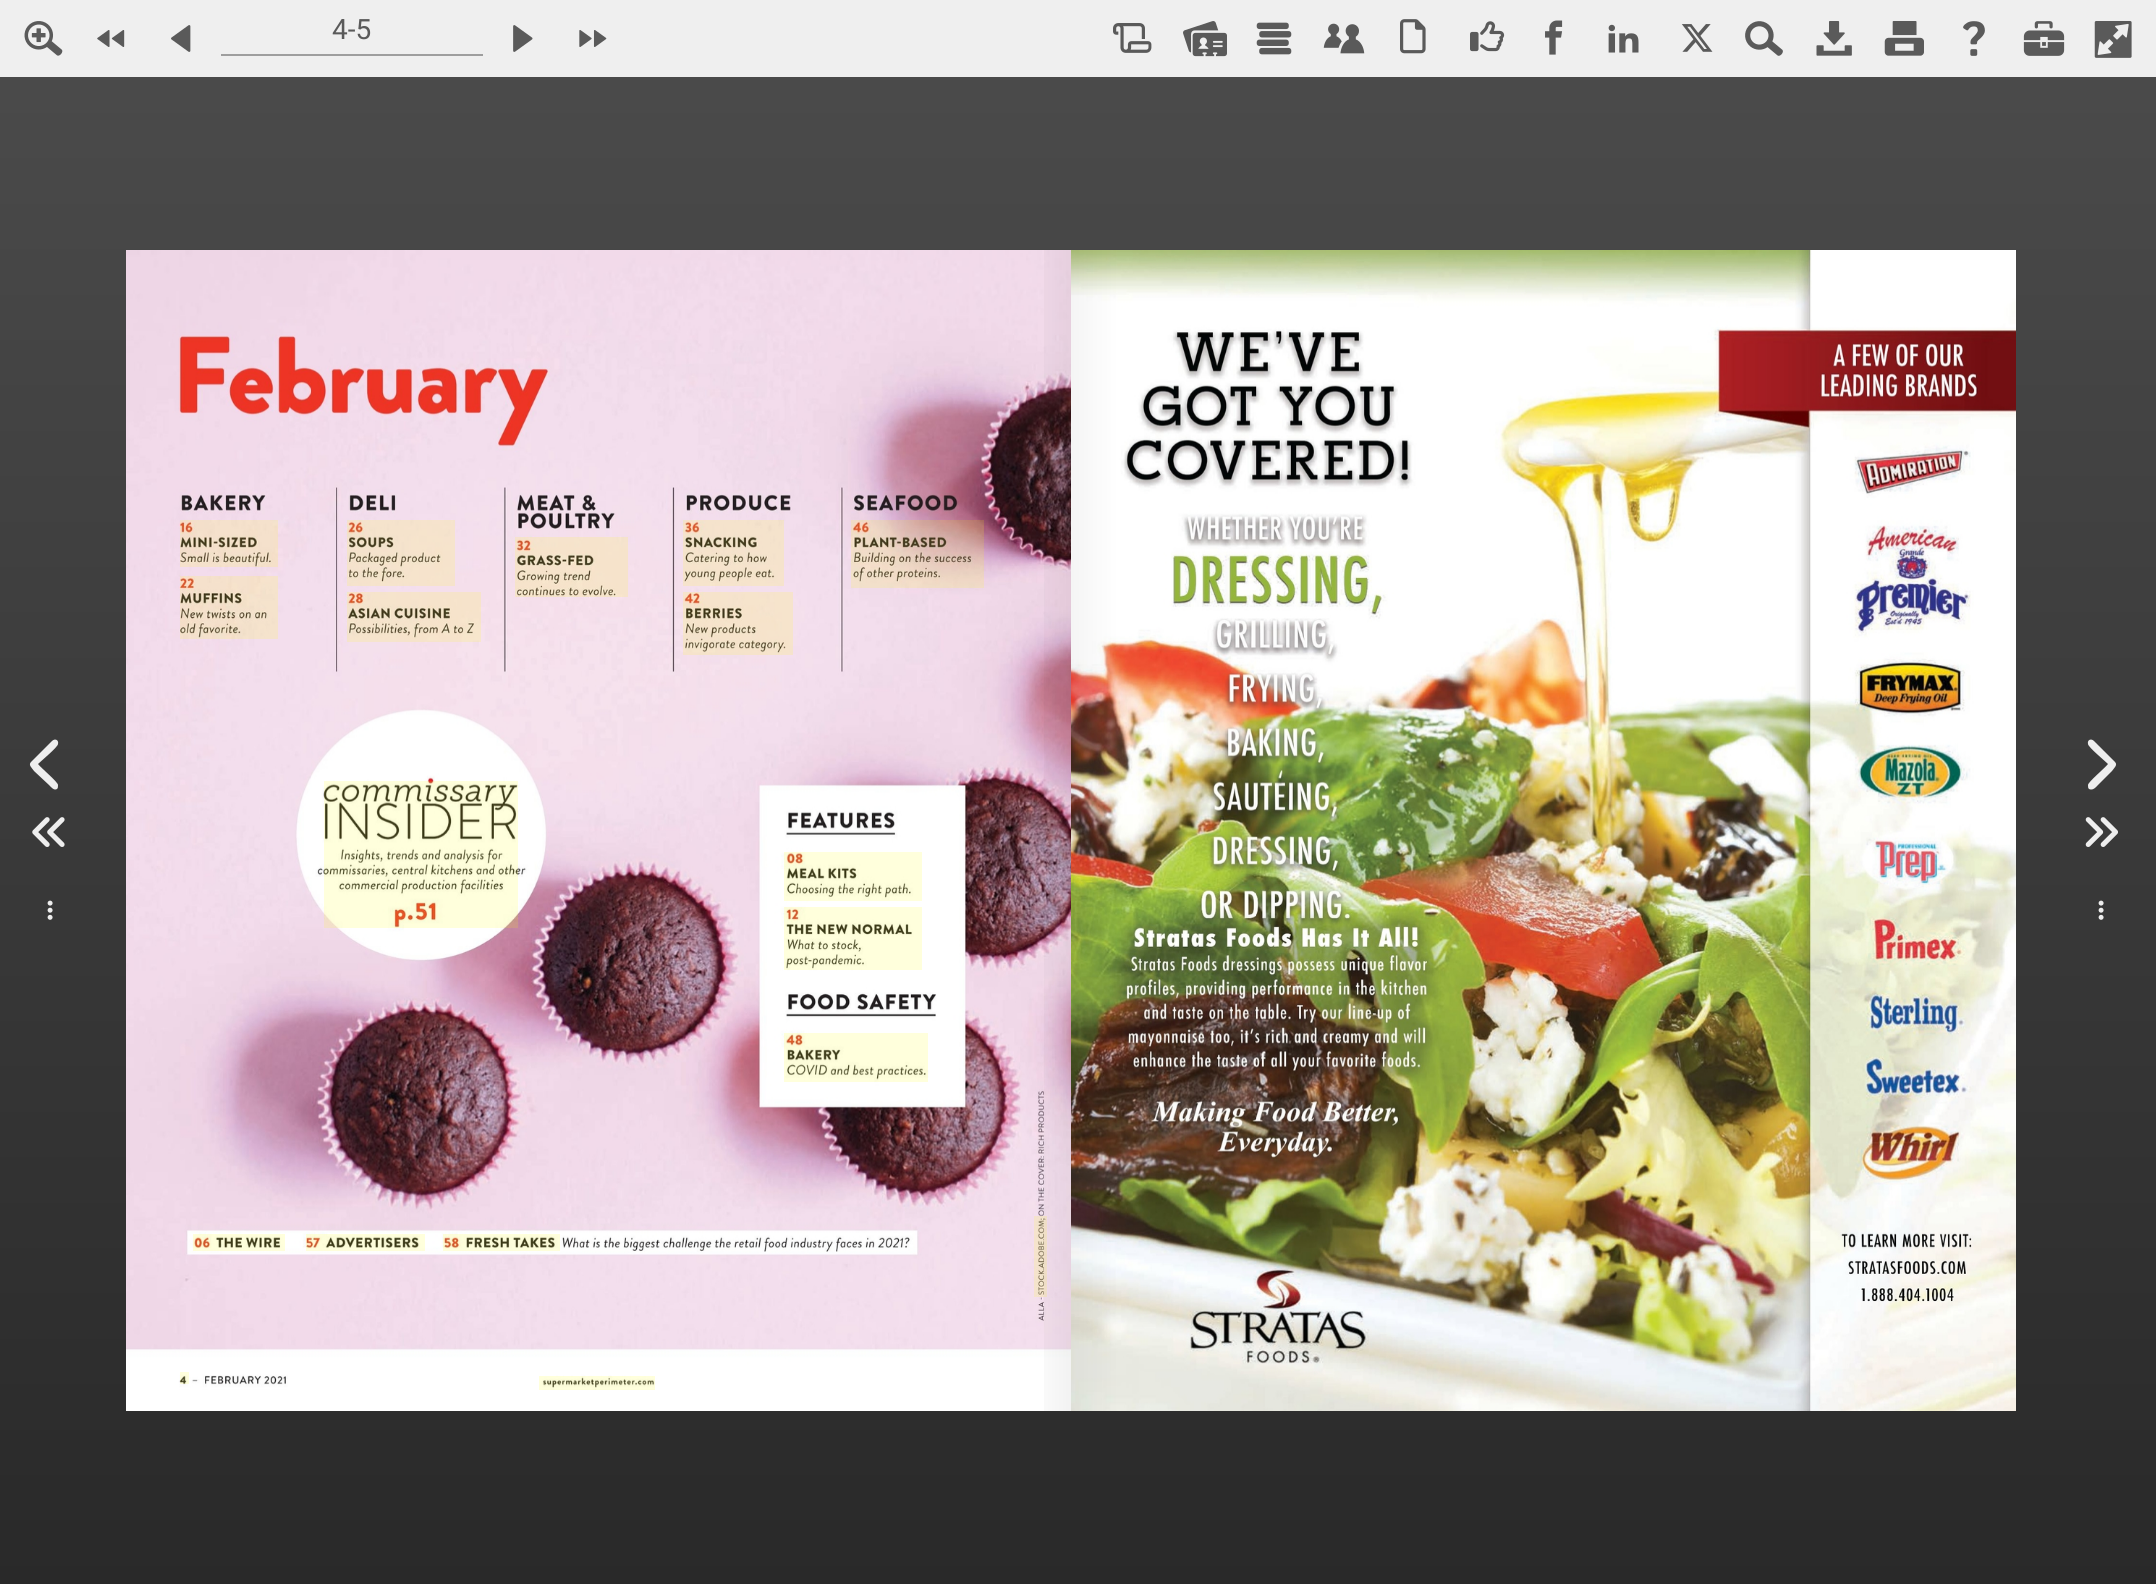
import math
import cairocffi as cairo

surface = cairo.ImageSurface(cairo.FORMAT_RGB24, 2156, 1584)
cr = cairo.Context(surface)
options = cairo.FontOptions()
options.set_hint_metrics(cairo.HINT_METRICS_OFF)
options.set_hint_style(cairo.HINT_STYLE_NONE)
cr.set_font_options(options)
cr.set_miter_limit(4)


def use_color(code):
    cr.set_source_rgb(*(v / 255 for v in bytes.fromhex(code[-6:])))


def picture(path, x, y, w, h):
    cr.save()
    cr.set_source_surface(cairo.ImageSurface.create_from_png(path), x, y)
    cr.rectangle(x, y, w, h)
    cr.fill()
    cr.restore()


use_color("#ffffff")
cr.paint()
gradient = cairo.LinearGradient(1078, 0, 1078, 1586)
gradient.add_color_stop_rgba(0, 0.298, 0.298, 0.298, 1)
gradient.add_color_stop_rgba(1, 0.161, 0.161, 0.161, 1)
cr.set_source(gradient)
cr.rectangle(0, 77, 2156, 1507)
cr.fill()
use_color("#efefef")
cr.rectangle(0, 0, 2156, 77)
cr.fill()
picture("img1.png", 24, 21, 39, 35)
picture("img2.png", 97, 30, 28, 17)
picture("img3.png", 171, 25, 20, 27)
use_color("#9e9e9e")
cr.rectangle(221, 54, 262, 2)
cr.fill()
cr.select_font_face("Roboto")
cr.set_font_size(28)
use_color("#5a5a5a")
cr.move_to(332, 39)
cr.show_text("4-5")
picture("img4.png", 513, 25, 20, 27)
picture("img5.png", 579, 30, 28, 17)
picture("img6.png", 1113, 23, 39, 30)
picture("img7.png", 1183, 21, 44, 36)
picture("img8.png", 1256, 22, 36, 33)
picture("img9.png", 1323, 23, 42, 31)
picture("img10.png", 1400, 19, 26, 35)
picture("img11.png", 1470, 21, 35, 31)
picture("img12.png", 1545, 20, 18, 35)
picture("img13.png", 1608, 24, 31, 29)
picture("img14.png", 1681, 24, 32, 28)
picture("img15.png", 1745, 21, 38, 35)
picture("img16.png", 1816, 21, 36, 35)
picture("img17.png", 1884, 21, 40, 35)
picture("img18.png", 1963, 21, 22, 35)
picture("img19.png", 2023, 21, 42, 35)
picture("img20.png", 2094, 21, 38, 37)
use_color("#eeeeee")
cr.new_path()
cr.move_to(31, 762)
cr.curve_to(28, 765, 32, 768, 34, 771)
cr.line_to(49, 785)
cr.curve_to(51, 787, 54, 791, 57, 789)
cr.curve_to(58, 788, 58, 787, 58, 785)
cr.curve_to(58, 782, 41, 768, 38, 764)
cr.curve_to(41, 761, 58, 747, 58, 744)
cr.curve_to(59, 740, 55, 738, 52, 741)
cr.close_path()
cr.fill()
picture("img21.png", 32, 817, 33, 30)
picture("img22.png", 47, 900, 6, 20)
use_color("#ffffff")
cr.rectangle(126, 1390, 945, 21)
cr.fill()
picture("img23.png", 126, 250, 945, 1140)
picture("img24.png", 126, 333, 945, 1056)
gradient = cairo.LinearGradient(126, 832, 1071, 832)
gradient.add_color_stop_rgba(0.95, 0, 0, 0, 0)
gradient.add_color_stop_rgba(1, 0, 0, 0, 0.05)
cr.set_source(gradient)
cr.rectangle(1044, 250, 27, 1161)
cr.fill()
cr.set_source_rgba(1, 1, 0, 0.14)
cr.rectangle(180, 520, 98, 47)
cr.fill()
cr.rectangle(347, 520, 108, 66)
cr.fill()
cr.rectangle(515, 537, 113, 60)
cr.fill()
cr.rectangle(683, 520, 101, 66)
cr.fill()
cr.rectangle(851, 520, 133, 68)
cr.fill()
cr.rectangle(180, 576, 98, 63)
cr.fill()
cr.rectangle(347, 592, 134, 50)
cr.fill()
cr.rectangle(683, 592, 110, 63)
cr.fill()
cr.rectangle(324, 781, 194, 147)
cr.fill()
cr.rectangle(784, 852, 138, 49)
cr.fill()
cr.rectangle(784, 907, 138, 63)
cr.fill()
cr.rectangle(784, 1033, 144, 49)
cr.fill()
cr.rectangle(193, 1234, 92, 17)
cr.fill()
cr.rectangle(306, 1234, 119, 17)
cr.fill()
cr.rectangle(443, 1234, 117, 17)
cr.fill()
cr.rectangle(1034, 1216, 13, 81)
cr.fill()
cr.rectangle(180, 1372, 9, 12)
cr.fill()
cr.rectangle(539, 1376, 116, 14)
cr.fill()
picture("img25.png", 1071, 250, 945, 1161)
use_color("#eeeeee")
cr.new_path()
cr.move_to(2115, 762)
cr.curve_to(2118, 765, 2114, 768, 2112, 771)
cr.line_to(2098, 785)
cr.curve_to(2096, 787, 2093, 791, 2089, 789)
cr.curve_to(2088, 788, 2088, 787, 2088, 785)
cr.curve_to(2088, 782, 2105, 768, 2108, 764)
cr.curve_to(2105, 761, 2088, 747, 2088, 744)
cr.curve_to(2087, 740, 2091, 738, 2094, 741)
cr.close_path()
cr.fill()
picture("img26.png", 2085, 817, 33, 30)
picture("img22.png", 2098, 900, 6, 20)
surface.write_to_png("result.png")
